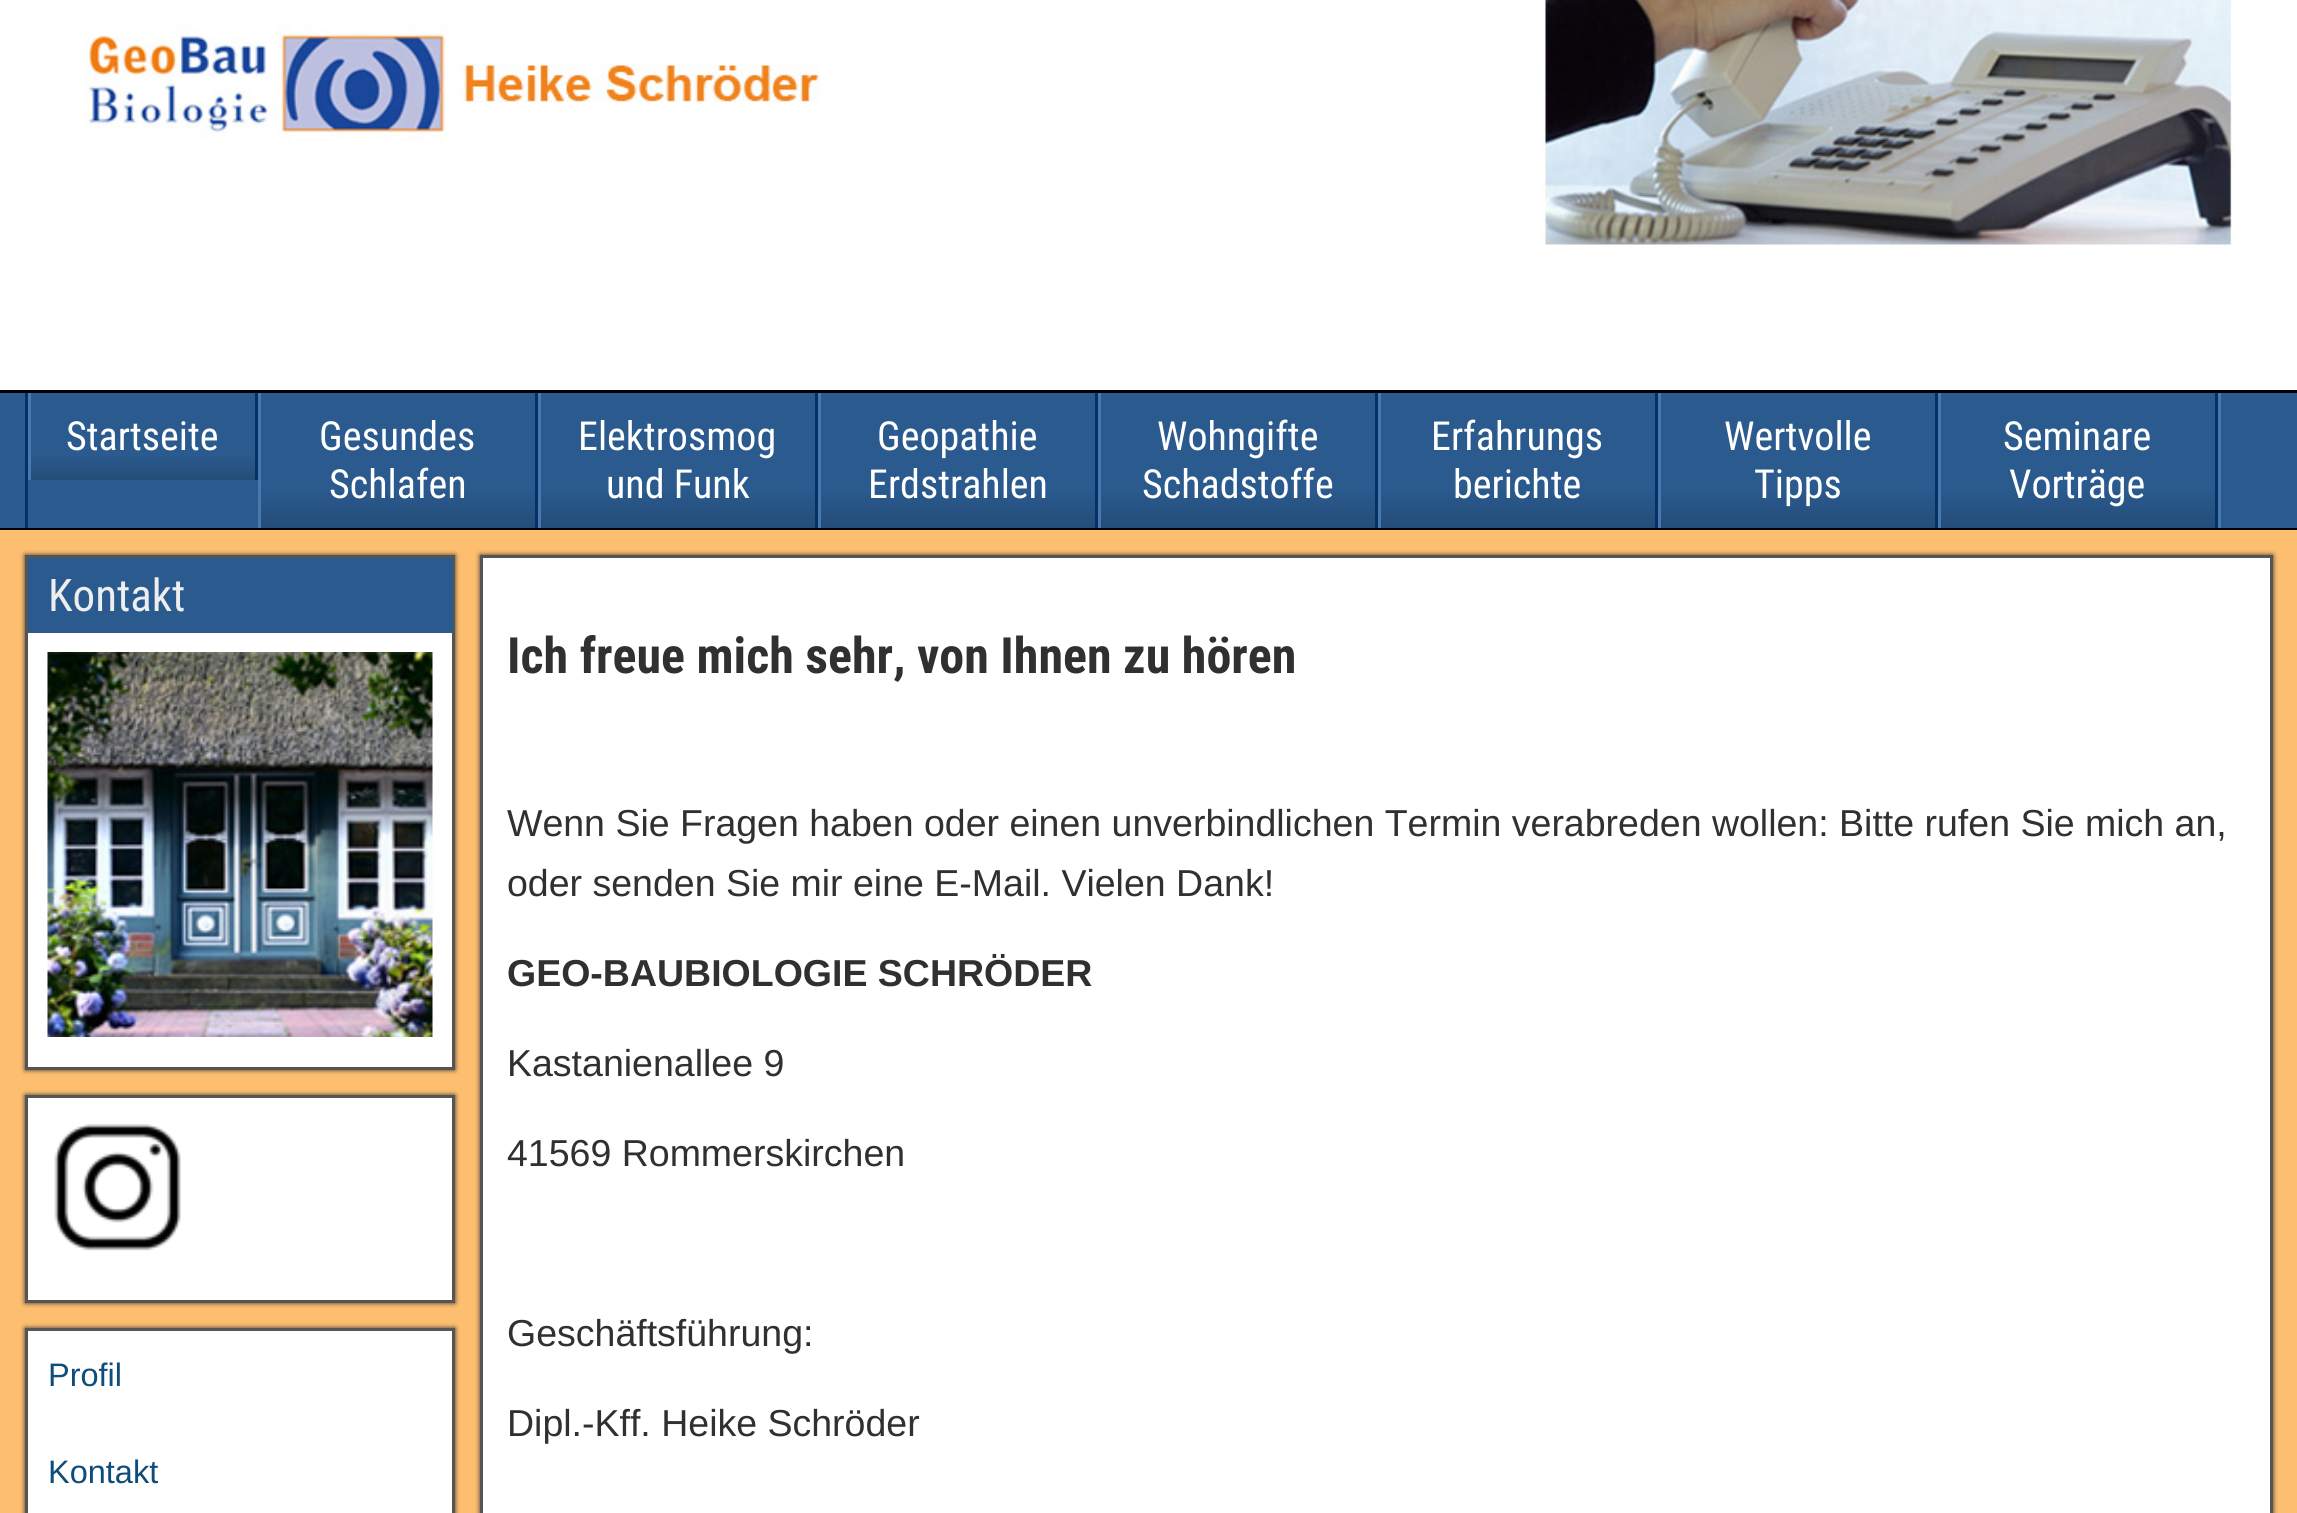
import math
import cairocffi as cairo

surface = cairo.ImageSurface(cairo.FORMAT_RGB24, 2297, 1513)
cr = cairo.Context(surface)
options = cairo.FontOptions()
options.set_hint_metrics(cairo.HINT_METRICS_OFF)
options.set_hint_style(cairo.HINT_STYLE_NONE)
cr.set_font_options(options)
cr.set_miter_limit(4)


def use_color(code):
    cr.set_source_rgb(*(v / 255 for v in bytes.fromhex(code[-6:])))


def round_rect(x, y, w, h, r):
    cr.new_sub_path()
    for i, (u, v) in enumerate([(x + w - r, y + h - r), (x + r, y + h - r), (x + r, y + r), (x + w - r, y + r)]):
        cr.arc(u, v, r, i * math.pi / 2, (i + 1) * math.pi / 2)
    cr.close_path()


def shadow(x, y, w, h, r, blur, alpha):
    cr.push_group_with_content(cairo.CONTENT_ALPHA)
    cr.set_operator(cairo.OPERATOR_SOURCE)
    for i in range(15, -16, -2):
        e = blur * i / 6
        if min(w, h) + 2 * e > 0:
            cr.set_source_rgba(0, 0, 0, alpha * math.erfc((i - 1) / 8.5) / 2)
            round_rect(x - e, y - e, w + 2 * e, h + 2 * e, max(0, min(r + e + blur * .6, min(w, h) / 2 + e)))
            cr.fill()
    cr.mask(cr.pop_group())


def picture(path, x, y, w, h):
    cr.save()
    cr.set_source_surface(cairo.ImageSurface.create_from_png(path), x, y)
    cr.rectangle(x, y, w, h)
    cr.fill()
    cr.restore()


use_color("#ffffff")
cr.paint()
use_color("#000000")
cr.rectangle(0, 390, 2297, 3)
cr.fill()
picture("img1.png", 84, 0, 2154, 245)
use_color("#2a5a8e")
cr.rectangle(0, 393, 2297, 135)
cr.fill()
use_color("#000000")
cr.rectangle(0, 528, 2297, 2)
cr.fill()
use_color("#4878ac")
cr.rectangle(2218, 393, 3, 135)
cr.fill()
use_color("#023266")
cr.rectangle(25, 393, 3, 135)
cr.fill()
gradient = cairo.LinearGradient(143, 393, 143, 480)
gradient.add_color_stop_rgba(0.7, 0.165, 0.353, 0.557, 1)
gradient.add_color_stop_rgba(1, 0.141, 0.302, 0.475, 1)
cr.set_source(gradient)
cr.rectangle(31, 457, 224, 23)
cr.fill()
use_color("#023266")
cr.rectangle(255, 393, 3, 87)
cr.fill()
use_color("#4878ac")
cr.rectangle(28, 393, 3, 87)
cr.fill()
cr.select_font_face("Roboto Condensed")
cr.set_font_size(40)
use_color("#ffffff")
cr.move_to(66, 450)
cr.show_text("Startseite")
gradient = cairo.LinearGradient(398, 393, 398, 528)
gradient.add_color_stop_rgba(0.7, 0.165, 0.353, 0.557, 1)
gradient.add_color_stop_rgba(1, 0.141, 0.302, 0.475, 1)
cr.set_source(gradient)
cr.rectangle(261, 492, 274, 36)
cr.fill()
use_color("#023266")
cr.rectangle(535, 393, 3, 135)
cr.fill()
use_color("#4878ac")
cr.rectangle(258, 393, 3, 135)
cr.fill()
use_color("#ffffff")
cr.move_to(319, 450)
cr.show_text("Gesundes")
cr.move_to(329, 498)
cr.show_text("Schlafen")
gradient = cairo.LinearGradient(678, 393, 678, 528)
gradient.add_color_stop_rgba(0.7, 0.165, 0.353, 0.557, 1)
gradient.add_color_stop_rgba(1, 0.141, 0.302, 0.475, 1)
cr.set_source(gradient)
cr.rectangle(541, 492, 274, 36)
cr.fill()
use_color("#023266")
cr.rectangle(815, 393, 3, 135)
cr.fill()
use_color("#4878ac")
cr.rectangle(538, 393, 3, 135)
cr.fill()
use_color("#ffffff")
cr.move_to(578, 450)
cr.show_text("Elektrosmog")
cr.move_to(606, 498)
cr.show_text("und Funk")
gradient = cairo.LinearGradient(958, 393, 958, 528)
gradient.add_color_stop_rgba(0.7, 0.165, 0.353, 0.557, 1)
gradient.add_color_stop_rgba(1, 0.141, 0.302, 0.475, 1)
cr.set_source(gradient)
cr.rectangle(821, 492, 274, 36)
cr.fill()
use_color("#023266")
cr.rectangle(1095, 393, 3, 135)
cr.fill()
use_color("#4878ac")
cr.rectangle(818, 393, 3, 135)
cr.fill()
use_color("#ffffff")
cr.move_to(877, 450)
cr.show_text("Geopathie")
cr.move_to(868, 498)
cr.show_text("Erdstrahlen")
gradient = cairo.LinearGradient(1238, 393, 1238, 528)
gradient.add_color_stop_rgba(0.7, 0.165, 0.353, 0.557, 1)
gradient.add_color_stop_rgba(1, 0.141, 0.302, 0.475, 1)
cr.set_source(gradient)
cr.rectangle(1101, 492, 274, 36)
cr.fill()
use_color("#023266")
cr.rectangle(1375, 393, 3, 135)
cr.fill()
use_color("#4878ac")
cr.rectangle(1098, 393, 3, 135)
cr.fill()
use_color("#ffffff")
cr.move_to(1157, 450)
cr.show_text("Wohngifte")
cr.move_to(1142, 498)
cr.show_text("Schadstoffe")
gradient = cairo.LinearGradient(1518, 393, 1518, 528)
gradient.add_color_stop_rgba(0.7, 0.165, 0.353, 0.557, 1)
gradient.add_color_stop_rgba(1, 0.141, 0.302, 0.475, 1)
cr.set_source(gradient)
cr.rectangle(1381, 492, 274, 36)
cr.fill()
use_color("#023266")
cr.rectangle(1655, 393, 3, 135)
cr.fill()
use_color("#4878ac")
cr.rectangle(1378, 393, 3, 135)
cr.fill()
use_color("#ffffff")
cr.move_to(1431, 450)
cr.show_text("Erfahrungs")
cr.move_to(1453, 498)
cr.show_text("berichte")
gradient = cairo.LinearGradient(1798, 393, 1798, 528)
gradient.add_color_stop_rgba(0.7, 0.165, 0.353, 0.557, 1)
gradient.add_color_stop_rgba(1, 0.141, 0.302, 0.475, 1)
cr.set_source(gradient)
cr.rectangle(1661, 492, 274, 36)
cr.fill()
use_color("#023266")
cr.rectangle(1935, 393, 3, 135)
cr.fill()
use_color("#4878ac")
cr.rectangle(1658, 393, 3, 135)
cr.fill()
use_color("#ffffff")
cr.move_to(1724, 450)
cr.show_text("Wertvolle")
cr.move_to(1754, 498)
cr.show_text("Tipps")
gradient = cairo.LinearGradient(2078, 393, 2078, 528)
gradient.add_color_stop_rgba(0.7, 0.165, 0.353, 0.557, 1)
gradient.add_color_stop_rgba(1, 0.141, 0.302, 0.475, 1)
cr.set_source(gradient)
cr.rectangle(1941, 492, 274, 36)
cr.fill()
use_color("#023266")
cr.rectangle(2215, 393, 3, 135)
cr.fill()
use_color("#4878ac")
cr.rectangle(1938, 393, 3, 135)
cr.fill()
use_color("#ffffff")
cr.move_to(2003, 450)
cr.show_text("Seminare")
cr.move_to(2009, 498)
cr.show_text("Vorträge")
use_color("#fdbf6f")
cr.rectangle(0, 530, 2297, 983)
cr.fill()
use_color("#333333")
shadow(25, 555, 430, 515, 0, 2.5, 1)
use_color("#ffffff")
cr.rectangle(28, 633, 424, 434)
cr.fill()
cr.rectangle(26.5, 556.5, 427, 512)
use_color("#555555")
cr.set_line_width(3)
cr.stroke()
use_color("#2a5a8e")
cr.rectangle(28, 558, 425, 75)
cr.fill()
cr.set_font_size(45)
use_color("#eeeeee")
cr.move_to(48, 611)
cr.show_text("Kontakt")
picture("img2.png", 47, 652, 386, 385)
use_color("#333333")
shadow(25, 1095, 430, 208, 0, 2.5, 1)
use_color("#ffffff")
cr.rectangle(26.5, 1096.5, 427, 205)
cr.fill_preserve()
use_color("#555555")
cr.stroke()
picture("img3.png", 54, 1124, 127, 127)
use_color("#333333")
shadow(25, 1328, 430, 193, 0, 2.5, 1)
use_color("#ffffff")
cr.rectangle(26.5, 1329.5, 427, 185)
cr.fill_preserve()
use_color("#555555")
cr.stroke()
cr.select_font_face("Liberation Sans")
cr.set_font_size(32.5)
use_color("#0e4d7a")
cr.move_to(48, 1386)
cr.show_text("Profil")
cr.move_to(48, 1483)
cr.show_text("Kontakt")
use_color("#333333")
shadow(480, 555, 1793, 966, 0, 2.5, 1)
use_color("#ffffff")
cr.rectangle(481.5, 556.5, 1790, 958)
cr.fill_preserve()
use_color("#555555")
cr.stroke()
cr.select_font_face("Roboto Condensed", cairo.FONT_SLANT_NORMAL, cairo.FONT_WEIGHT_BOLD)
cr.set_font_size(50)
use_color("#303030")
cr.move_to(507, 673)
cr.show_text("Ich freue mich sehr, von Ihnen zu hören")
cr.select_font_face("Arimo")
cr.set_font_size(37.5)
cr.move_to(507, 836)
cr.show_text("Wenn Sie Fragen haben oder einen unverbindlichen Termin verabreden wollen: Bitte rufen Sie mich an,")
cr.move_to(507, 896)
cr.show_text("oder senden Sie mir eine E-Mail. Vielen Dank!")
cr.select_font_face("Arimo", cairo.FONT_SLANT_NORMAL, cairo.FONT_WEIGHT_BOLD)
cr.move_to(507, 986)
cr.show_text("GEO-BAUBIOLOGIE SCHRÖDER")
cr.select_font_face("Arimo")
cr.move_to(507, 1076)
cr.show_text("Kastanienallee 9")
cr.move_to(507, 1166)
cr.show_text("41569 Rommerskirchen")
cr.move_to(507, 1346)
cr.show_text("Geschäftsführung:")
cr.move_to(507, 1436)
cr.show_text("Dipl.-Kff. Heike Schröder")
surface.write_to_png("result.png")
